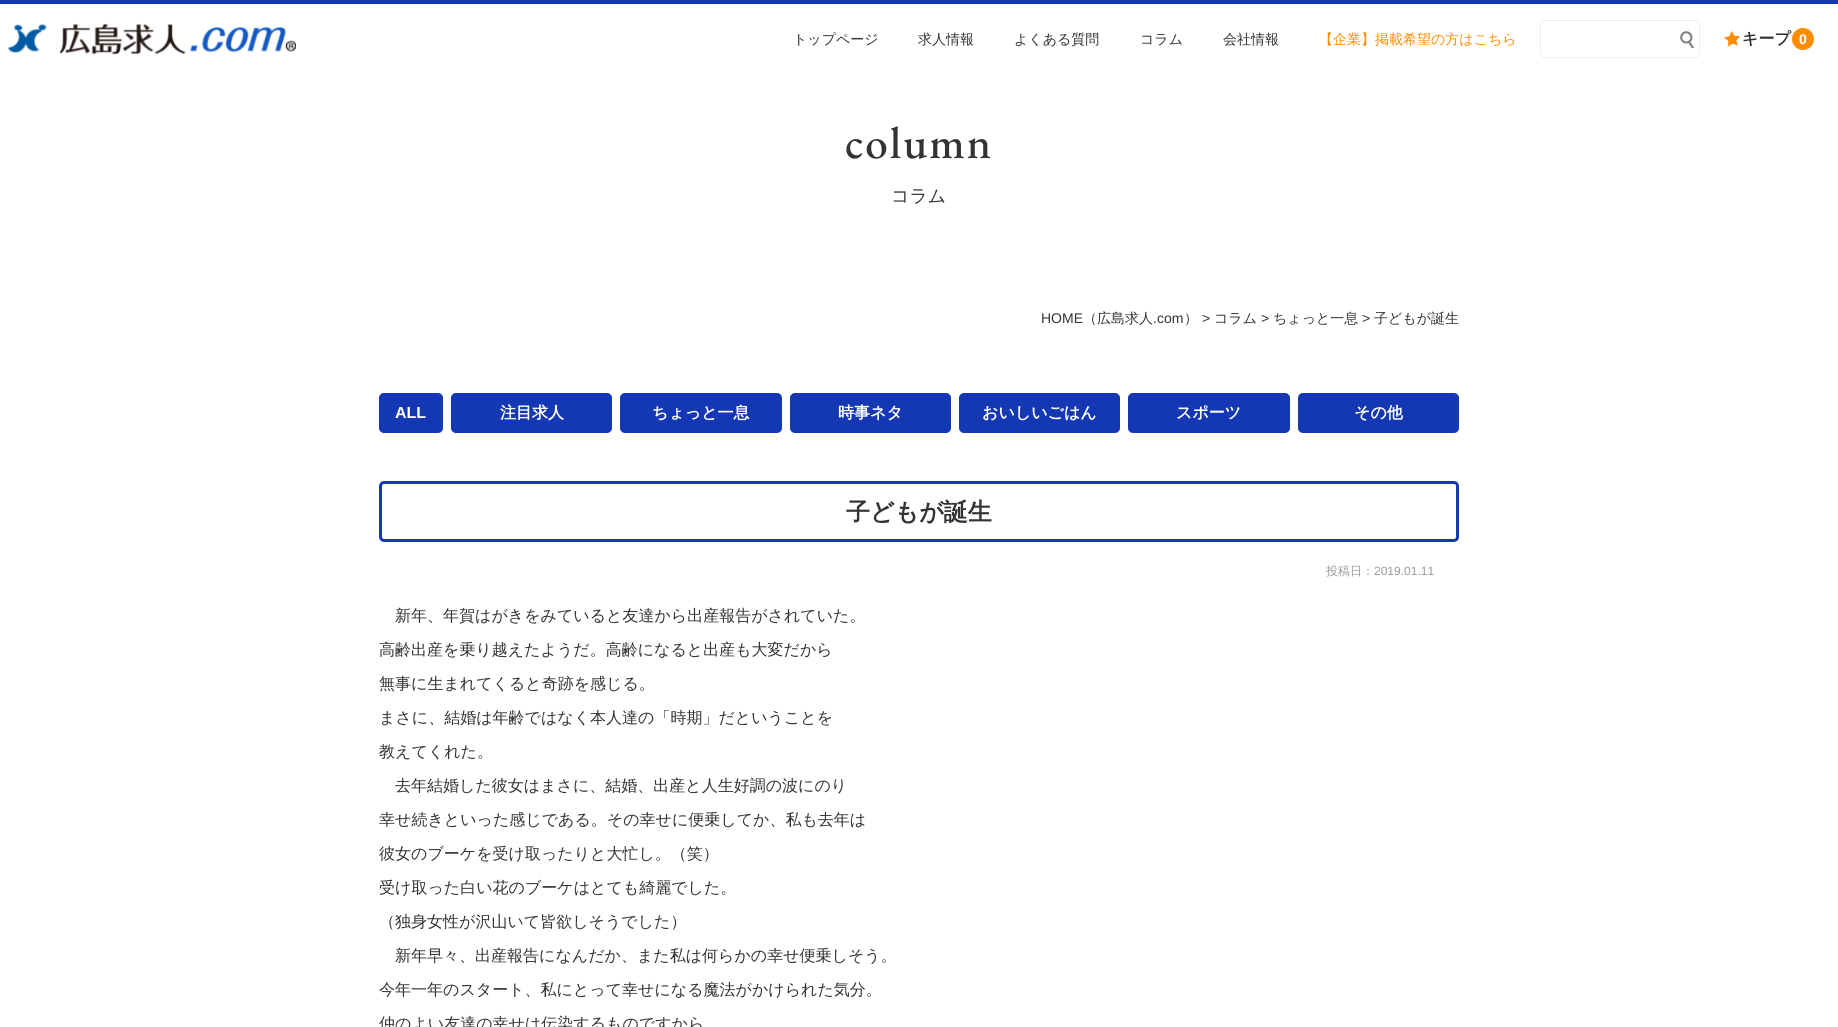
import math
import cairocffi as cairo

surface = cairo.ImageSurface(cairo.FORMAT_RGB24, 1838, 1027)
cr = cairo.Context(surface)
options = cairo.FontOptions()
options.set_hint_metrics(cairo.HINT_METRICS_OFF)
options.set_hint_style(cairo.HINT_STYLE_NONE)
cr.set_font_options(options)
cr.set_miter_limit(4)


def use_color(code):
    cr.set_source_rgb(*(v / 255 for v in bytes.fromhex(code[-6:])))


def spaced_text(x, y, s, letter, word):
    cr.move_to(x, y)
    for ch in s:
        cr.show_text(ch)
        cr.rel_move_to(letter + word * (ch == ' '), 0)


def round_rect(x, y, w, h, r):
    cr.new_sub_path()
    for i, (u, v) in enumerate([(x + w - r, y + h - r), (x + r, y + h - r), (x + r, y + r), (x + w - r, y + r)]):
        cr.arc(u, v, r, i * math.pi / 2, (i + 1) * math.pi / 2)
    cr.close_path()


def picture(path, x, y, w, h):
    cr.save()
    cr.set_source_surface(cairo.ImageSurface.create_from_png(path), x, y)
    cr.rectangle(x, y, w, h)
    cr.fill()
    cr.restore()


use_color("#ffffff")
cr.paint()
use_color("#1437b4")
cr.rectangle(0, 0, 1838, 4)
cr.fill()
picture("img1.png", 8, 23, 288, 32)
cr.select_font_face("WenQuanYi Zen Hei Medium")
cr.set_font_size(14)
use_color("#333333")
cr.move_to(793, 44)
cr.show_text("トップページ")
cr.move_to(918, 44)
cr.show_text("求人情報")
cr.move_to(1014, 44)
cr.show_text("よくある質問")
cr.move_to(1140, 44)
cr.show_text("コラム")
cr.move_to(1223, 44)
cr.show_text("会社情報")
use_color("#ff8c00")
cr.move_to(1319, 44)
cr.show_text("【企業】掲載希望の方はこちら")
round_rect(1540.5, 20.5, 159, 37, 4.5)
use_color("#eeeeee")
cr.set_line_width(1)
cr.stroke()
cr.save()
round_rect(1541, 21, 158, 36, 4)
cr.clip()
use_color("#ffffff")
cr.rectangle(1542, 22, 133, 35)
cr.fill()
cr.restore()
use_color("#ffffff")
round_rect(1675, 22, 24, 35, 4)
cr.fill()
picture("img2.png", 1680, 31, 14, 17)
picture("img3.png", 1724, 31, 16, 16)
cr.select_font_face("WenQuanYi Zen Hei", cairo.FONT_SLANT_NORMAL, cairo.FONT_WEIGHT_BOLD)
cr.set_font_size(16)
use_color("#333333")
cr.move_to(1742, 44)
cr.show_text("キープ")
use_color("#ff8c00")
cr.new_path()
cr.arc(1803, 39, 11, 0, 2 * math.pi)
cr.fill()
cr.select_font_face("Liberation Sans", cairo.FONT_SLANT_NORMAL, cairo.FONT_WEIGHT_BOLD)
cr.set_font_size(14)
use_color("#ffffff")
cr.move_to(1799, 44)
cr.show_text("0")
cr.select_font_face("EB Garamond Medium")
cr.set_font_size(45)
use_color("#333333")
spaced_text(845, 158, "column", 2, 0)
cr.select_font_face("WenQuanYi Zen Hei Medium")
cr.set_font_size(18)
cr.move_to(891, 202)
cr.show_text("コラム")
cr.select_font_face("Liberation Sans")
cr.set_font_size(14)
cr.move_to(1041, 323)
cr.show_text("HOME")
cr.select_font_face("WenQuanYi Zen Hei Medium")
cr.move_to(1083, 323)
cr.show_text("（広島求人")
cr.select_font_face("Liberation Sans")
cr.move_to(1153, 323)
cr.show_text(".com")
cr.select_font_face("WenQuanYi Zen Hei Medium")
cr.move_to(1184, 323)
cr.show_text("）")
cr.select_font_face("Liberation Sans")
cr.move_to(1202, 323)
cr.show_text(">")
cr.select_font_face("WenQuanYi Zen Hei Medium")
cr.move_to(1214, 323)
cr.show_text("コラム")
cr.select_font_face("Liberation Sans")
cr.move_to(1261, 323)
cr.show_text(">")
cr.select_font_face("WenQuanYi Zen Hei Medium")
cr.move_to(1273, 323)
cr.show_text("ちょっと一息")
cr.select_font_face("Liberation Sans")
cr.move_to(1362, 323)
cr.show_text(">")
cr.select_font_face("WenQuanYi Zen Hei Medium")
cr.move_to(1374, 323)
cr.show_text("子どもが誕生")
use_color("#1437b4")
round_rect(379, 393, 64, 40, 5)
cr.fill()
cr.select_font_face("Liberation Sans", cairo.FONT_SLANT_NORMAL, cairo.FONT_WEIGHT_BOLD)
cr.set_font_size(16)
use_color("#ffffff")
cr.move_to(395, 418)
cr.show_text("ALL")
use_color("#1437b4")
round_rect(451, 393, 161, 40, 5)
cr.fill()
cr.select_font_face("WenQuanYi Zen Hei", cairo.FONT_SLANT_NORMAL, cairo.FONT_WEIGHT_BOLD)
use_color("#ffffff")
cr.move_to(500, 418)
cr.show_text("注目求人")
use_color("#1437b4")
round_rect(620, 393, 162, 40, 5)
cr.fill()
use_color("#ffffff")
cr.move_to(652, 418)
cr.show_text("ちょっと一息")
use_color("#1437b4")
round_rect(790, 393, 161, 40, 5)
cr.fill()
use_color("#ffffff")
cr.move_to(838, 418)
cr.show_text("時事ネタ")
use_color("#1437b4")
round_rect(959, 393, 161, 40, 5)
cr.fill()
use_color("#ffffff")
cr.move_to(982, 418)
cr.show_text("おいしいごはん")
use_color("#1437b4")
round_rect(1128, 393, 162, 40, 5)
cr.fill()
use_color("#ffffff")
cr.move_to(1176, 418)
cr.show_text("スポーツ")
use_color("#1437b4")
round_rect(1298, 393, 161, 40, 5)
cr.fill()
use_color("#ffffff")
cr.move_to(1354, 418)
cr.show_text("その他")
round_rect(380.5, 482.5, 1077, 58, 3.5)
use_color("#1437b4")
cr.set_line_width(3)
cr.stroke()
cr.set_font_size(24)
use_color("#333333")
cr.move_to(846, 520)
cr.show_text("子どもが誕生")
cr.select_font_face("WenQuanYi Zen Hei Medium")
cr.set_font_size(12)
use_color("#999999")
cr.move_to(1326, 575)
cr.show_text("投稿日：")
cr.select_font_face("Liberation Sans")
cr.move_to(1374, 575)
cr.show_text("2019.01.11")
cr.select_font_face("WenQuanYi Zen Hei Medium")
cr.set_font_size(16)
use_color("#333333")
cr.move_to(395, 621)
cr.show_text("新年、年賀はがきをみていると友達から出産報告がされていた。")
cr.move_to(379, 655)
cr.show_text("高齢出産を乗り越えたようだ。高齢になると出産も大変だから")
cr.move_to(379, 689)
cr.show_text("無事に生まれてくると奇跡を感じる。")
cr.move_to(379, 723)
cr.show_text("まさに、結婚は年齢ではなく本人達の「時期」だということを")
cr.move_to(379, 757)
cr.show_text("教えてくれた。")
cr.move_to(395, 791)
cr.show_text("去年結婚した彼女はまさに、結婚、出産と人生好調の波にのり")
cr.move_to(379, 825)
cr.show_text("幸せ続きといった感じである。その幸せに便乗してか、私も去年は")
cr.move_to(379, 859)
cr.show_text("彼女のブーケを受け取ったりと大忙し。（笑）")
cr.move_to(379, 893)
cr.show_text("受け取った白い花のブーケはとても綺麗でした。")
cr.move_to(379, 927)
cr.show_text("（独身女性が沢山いて皆欲しそうでした）")
cr.move_to(395, 961)
cr.show_text("新年早々、出産報告になんだか、また私は何らかの幸せ便乗しそう。")
cr.move_to(379, 995)
cr.show_text("今年一年のスタート、私にとって幸せになる魔法がかけられた気分。")
cr.move_to(379, 1029)
cr.show_text("仲のよい友達の幸せは伝染するものですから")
surface.write_to_png("result.png")
